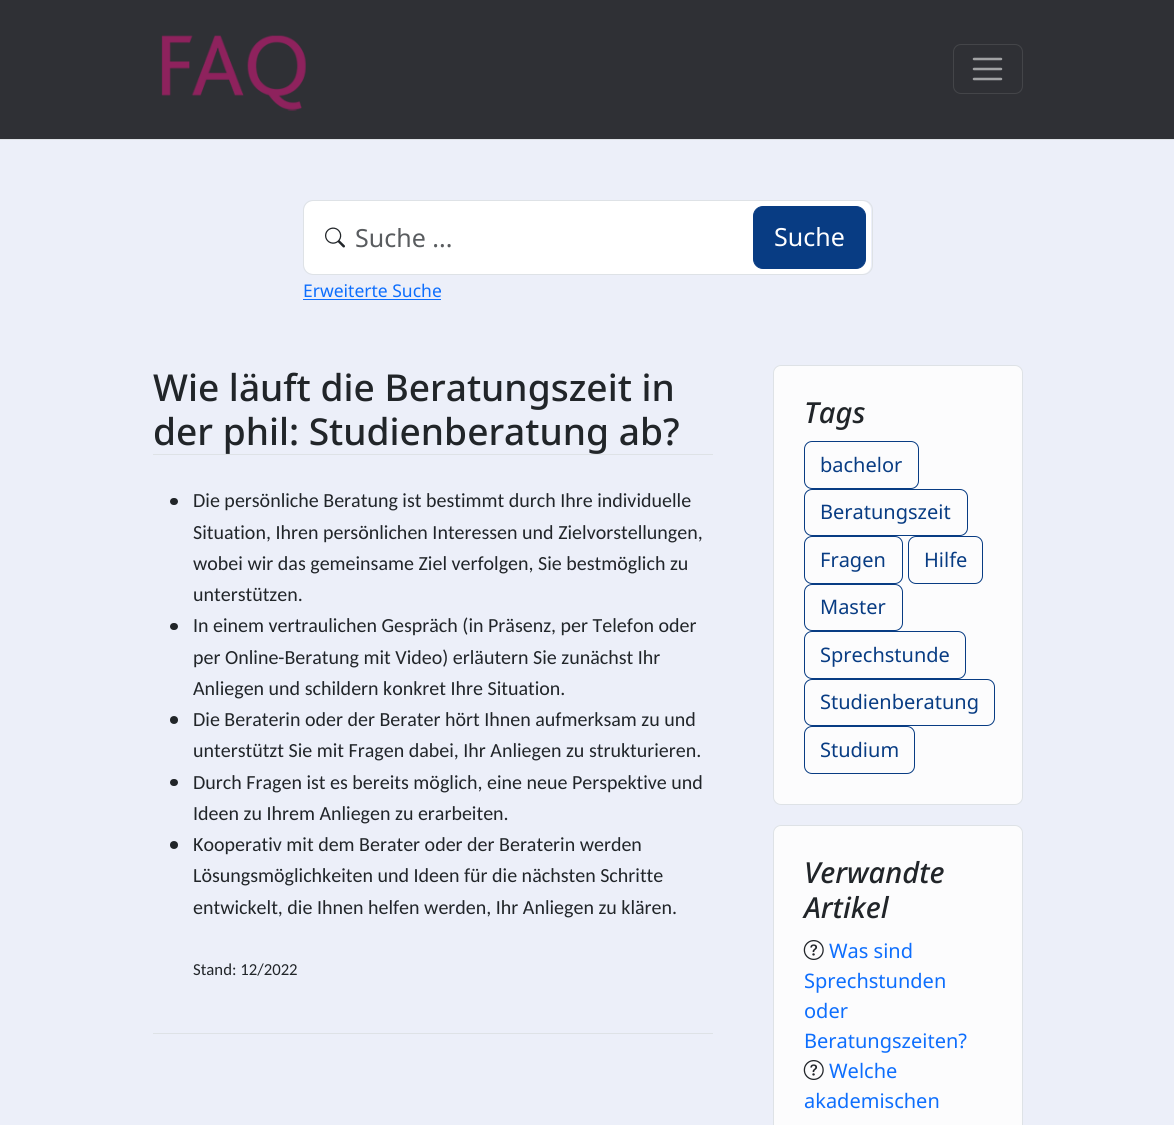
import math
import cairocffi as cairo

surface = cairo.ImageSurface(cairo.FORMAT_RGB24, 1174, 1125)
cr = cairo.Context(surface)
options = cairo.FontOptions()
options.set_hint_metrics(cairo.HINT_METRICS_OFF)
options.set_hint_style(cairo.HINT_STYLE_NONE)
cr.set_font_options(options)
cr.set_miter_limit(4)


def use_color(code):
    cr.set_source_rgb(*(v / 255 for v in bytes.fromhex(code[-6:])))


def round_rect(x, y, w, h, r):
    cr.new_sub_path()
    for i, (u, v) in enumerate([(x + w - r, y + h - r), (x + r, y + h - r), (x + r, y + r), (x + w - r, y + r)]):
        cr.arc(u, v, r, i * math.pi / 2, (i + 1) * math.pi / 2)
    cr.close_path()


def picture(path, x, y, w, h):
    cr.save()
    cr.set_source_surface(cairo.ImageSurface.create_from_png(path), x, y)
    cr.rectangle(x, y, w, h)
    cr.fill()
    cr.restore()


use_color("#eceff9")
cr.paint()
use_color("#2f3035")
cr.rectangle(0, 0, 1174, 139)
cr.fill()
use_color("#dee2e6")
cr.rectangle(0, 139, 1174, 1)
cr.fill()
picture("img1.png", 161, 35, 145, 76)
round_rect(953.5, 44.5, 69, 49, 7.5)
use_color("#444549")
cr.set_line_width(1)
cr.stroke()
cr.new_path()
cr.move_to(974, 59)
cr.line_to(1001, 59)
cr.move_to(974, 69)
cr.line_to(1001, 69)
cr.move_to(974, 79)
cr.line_to(1001, 79)
use_color("#a1a2a4")
cr.set_line_width(2.5)
cr.set_line_cap(cairo.LINE_CAP_ROUND)
cr.stroke()
use_color("#ffffff")
round_rect(304, 201, 567, 73, 9)
cr.fill()
round_rect(303.5, 200.5, 569, 74, 9.5)
use_color("#dee2e6")
cr.set_line_width(1)
cr.set_line_cap(cairo.LINE_CAP_BUTT)
cr.stroke()
picture("img2.png", 325, 227, 20, 21)
cr.select_font_face("Noto Sans")
cr.set_font_size(25)
use_color("#595c5f")
cr.move_to(355, 247)
cr.show_text("Suche ...")
use_color("#083c83")
round_rect(753.5, 206.5, 112, 62, 9.5)
cr.fill_preserve()
cr.stroke()
use_color("#ffffff")
cr.move_to(774, 246)
cr.show_text("Suche")
cr.set_font_size(17.5)
use_color("#0d6efd")
cr.move_to(303, 297)
cr.show_text("Erweiterte Suche")
cr.rectangle(303, 299, 138, 1)
cr.fill()
use_color("#dee2e6")
cr.rectangle(153, 454, 560, 1)
cr.fill()
cr.select_font_face("Noto Sans Medium")
cr.set_font_size(37.1)
use_color("#212529")
cr.move_to(153, 401)
cr.show_text("Wie läuft die Beratungszeit in")
cr.move_to(153, 445)
cr.show_text("der phil: Studienberatung ab?")
use_color("#dee2e6")
cr.rectangle(153, 1033, 560, 1)
cr.fill()
use_color("#212529")
round_rect(170, 498, 8, 7, 3.5)
cr.fill()
cr.select_font_face("Carlito")
cr.set_font_size(20)
cr.move_to(193, 507)
cr.show_text("Die persönliche Beratung ist bestimmt durch Ihre individuelle")
cr.move_to(193, 539)
cr.show_text("Situation, Ihren persönlichen Interessen und Zielvorstellungen,")
cr.move_to(193, 570)
cr.show_text("wobei wir das gemeinsame Ziel verfolgen, Sie bestmöglich zu")
cr.move_to(193, 601)
cr.show_text("unterstützen.")
round_rect(170, 623, 8, 7, 3.5)
cr.fill()
cr.move_to(193, 632)
cr.show_text("In einem vertraulichen Gespräch (in Präsenz, per Telefon oder")
cr.move_to(193, 664)
cr.show_text("per Online-Beratung mit Video) erläutern Sie zunächst Ihr")
cr.move_to(193, 695)
cr.show_text("Anliegen und schildern konkret Ihre Situation.")
cr.new_path()
cr.arc(174, 720, 4, 0, 2 * math.pi)
cr.fill()
cr.move_to(193, 726)
cr.show_text("Die Beraterin oder der Berater hört Ihnen aufmerksam zu und")
cr.move_to(193, 757)
cr.show_text("unterstützt Sie mit Fragen dabei, Ihr Anliegen zu strukturieren.")
round_rect(170, 779, 8, 7, 3.5)
cr.fill()
cr.move_to(193, 789)
cr.show_text("Durch Fragen ist es bereits möglich, eine neue Perspektive und")
cr.move_to(193, 820)
cr.show_text("Ideen zu Ihrem Anliegen zu erarbeiten.")
cr.new_path()
cr.arc(174, 845, 4, 0, 2 * math.pi)
cr.fill()
cr.move_to(193, 851)
cr.show_text("Kooperativ mit dem Berater oder der Beraterin werden")
cr.move_to(193, 882)
cr.show_text("Lösungsmöglichkeiten und Ideen für die nächsten Schritte")
cr.move_to(193, 914)
cr.show_text("entwickelt, die Ihnen helfen werden, Ihr Anliegen zu klären.")
cr.set_font_size(16.75)
cr.move_to(193, 975)
cr.show_text("Stand: 12/2022")
use_color("#fcfcfd")
round_rect(773.5, 365.5, 249, 439, 7.5)
cr.fill_preserve()
use_color("#dee2e6")
cr.stroke()
cr.select_font_face("Noto Sans Medium", cairo.FONT_SLANT_ITALIC)
cr.set_font_size(29)
use_color("#212529")
cr.move_to(804, 423)
cr.show_text("Tags")
round_rect(804.5, 441.5, 114, 47, 7.5)
use_color("#083c83")
cr.stroke()
cr.select_font_face("Noto Sans")
cr.set_font_size(20)
cr.move_to(820, 472)
cr.show_text("bachelor")
round_rect(804.5, 489.5, 163, 46, 7.5)
cr.stroke()
cr.move_to(820, 519)
cr.show_text("Beratungszeit")
round_rect(804.5, 536.5, 98, 47, 7.5)
cr.stroke()
cr.move_to(820, 567)
cr.show_text("Fragen")
round_rect(908.5, 536.5, 74, 47, 7.5)
cr.stroke()
cr.move_to(924, 567)
cr.show_text("Hilfe")
round_rect(804.5, 584.5, 98, 46, 7.5)
cr.stroke()
cr.move_to(820, 614)
cr.show_text("Master")
round_rect(804.5, 631.5, 161, 47, 7.5)
cr.stroke()
cr.move_to(820, 662)
cr.show_text("Sprechstunde")
round_rect(804.5, 679.5, 190, 46, 7.5)
cr.stroke()
cr.move_to(820, 709)
cr.show_text("Studienberatung")
round_rect(804.5, 726.5, 110, 47, 7.5)
cr.stroke()
cr.move_to(820, 757)
cr.show_text("Studium")
use_color("#fcfcfd")
round_rect(773.5, 825.5, 249, 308, 7.5)
cr.fill_preserve()
use_color("#dee2e6")
cr.stroke()
cr.select_font_face("Noto Sans Medium", cairo.FONT_SLANT_ITALIC)
cr.set_font_size(29)
use_color("#212529")
cr.move_to(804, 883)
cr.show_text("Verwandte")
cr.move_to(804, 918)
cr.show_text("Artikel")
picture("img3.png", 803, 940, 21, 20)
cr.select_font_face("Noto Sans")
cr.set_font_size(20)
use_color("#0d6efd")
cr.move_to(829, 958)
cr.show_text("Was sind")
cr.move_to(804, 988)
cr.show_text("Sprechstunden")
cr.move_to(804, 1018)
cr.show_text("oder")
cr.move_to(804, 1048)
cr.show_text("Beratungszeiten?")
picture("img3.png", 803, 1060, 21, 20)
cr.move_to(829, 1078)
cr.show_text("Welche")
cr.move_to(804, 1108)
cr.show_text("akademischen")
surface.write_to_png("result.png")
